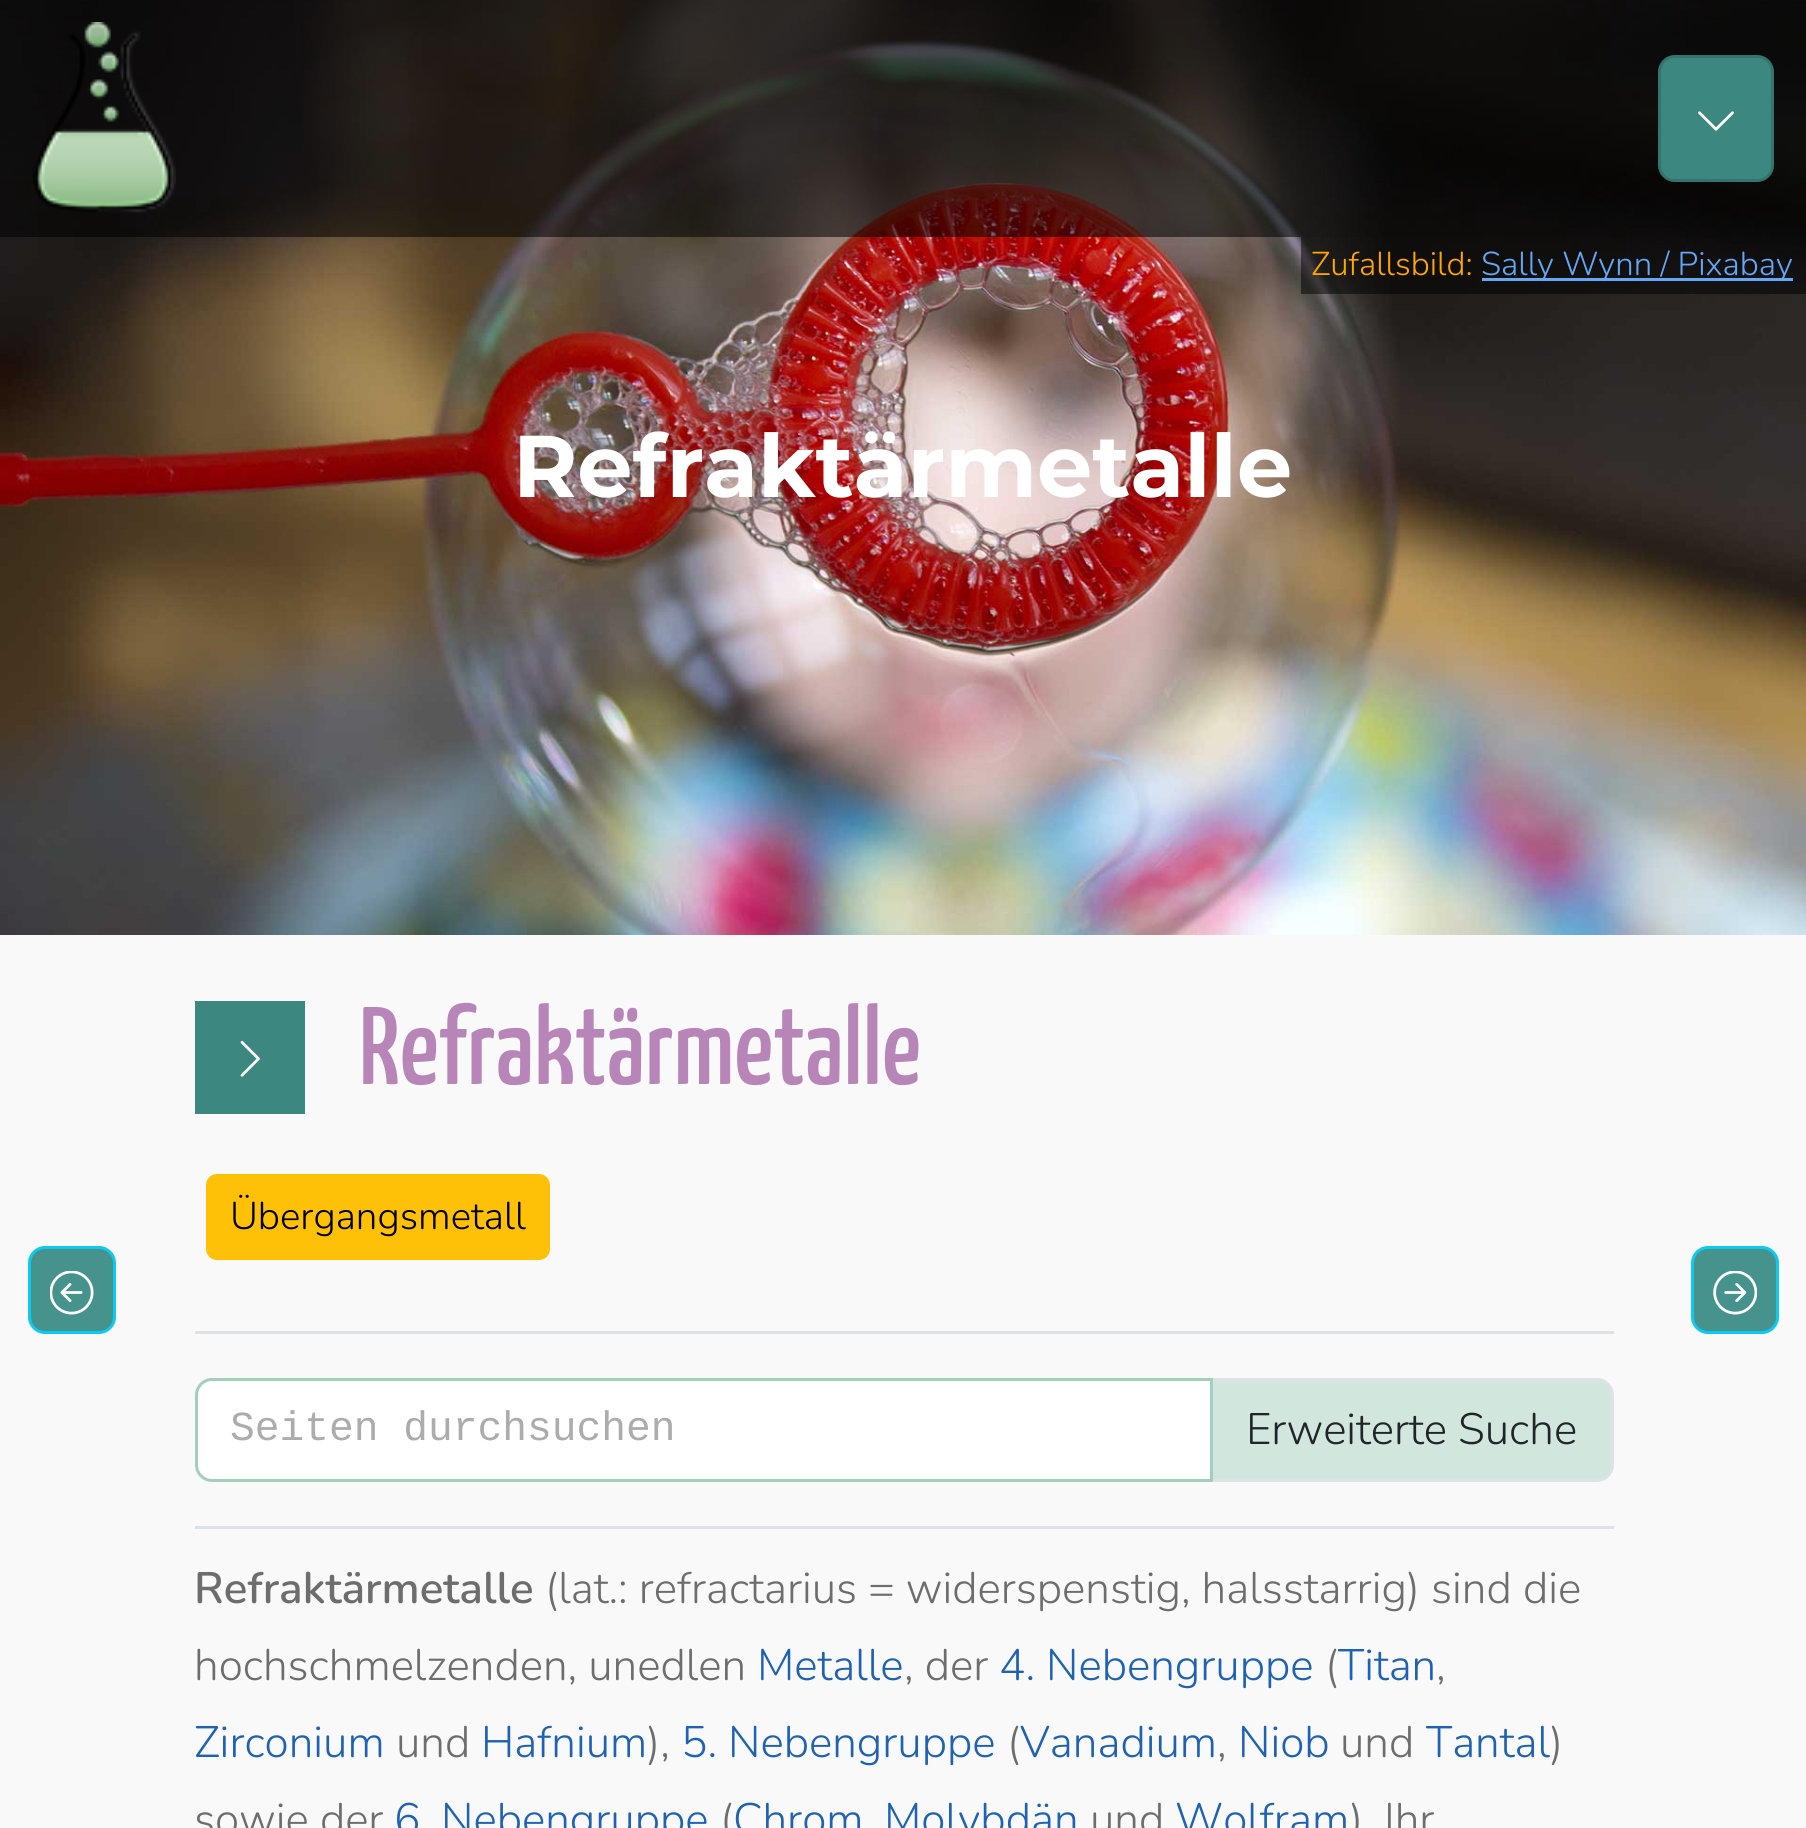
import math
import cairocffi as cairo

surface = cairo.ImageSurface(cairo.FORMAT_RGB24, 1806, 1828)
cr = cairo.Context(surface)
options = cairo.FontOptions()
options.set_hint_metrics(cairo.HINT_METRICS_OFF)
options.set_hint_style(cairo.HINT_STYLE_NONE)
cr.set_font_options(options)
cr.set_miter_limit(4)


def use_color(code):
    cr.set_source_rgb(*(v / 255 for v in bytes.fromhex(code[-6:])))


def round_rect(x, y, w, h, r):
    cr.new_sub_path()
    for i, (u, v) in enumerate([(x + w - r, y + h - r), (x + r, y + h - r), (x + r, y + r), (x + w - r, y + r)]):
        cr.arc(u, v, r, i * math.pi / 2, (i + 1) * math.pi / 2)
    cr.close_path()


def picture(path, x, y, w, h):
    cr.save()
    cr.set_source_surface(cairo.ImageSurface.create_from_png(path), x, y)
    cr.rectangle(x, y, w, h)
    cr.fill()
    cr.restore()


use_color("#f9f9f9")
cr.paint()
picture("img3.png", 0, 0, 1806, 935)
cr.set_source_rgba(0, 0, 0, 0.55)
cr.rectangle(0, 0, 1806, 237)
cr.fill()
picture("img1.png", 33, 22, 143, 191)
use_color("#3c8881")
round_rect(1658, 55, 116, 127, 17)
cr.fill()
round_rect(1659.5, 56.5, 113, 124, 15.5)
cr.set_source_rgba(0, 0, 0, 0.15)
cr.set_line_width(3)
cr.stroke()
picture("img2.png", 1698, 111, 36, 20)
cr.set_source_rgba(0, 0, 0, 0.5)
cr.rectangle(1301, 237, 505, 57)
cr.fill()
cr.select_font_face("Nunito Light")
cr.set_font_size(33)
use_color("#ffa500")
cr.move_to(1311, 275)
cr.show_text("Zufallsbild:")
use_color("#63a8f8")
cr.rectangle(1482, 278, 311, 3)
cr.fill()
cr.move_to(1481, 275)
cr.show_text("Sally Wynn / Pixabay")
cr.select_font_face("Montserrat", cairo.FONT_SLANT_NORMAL, cairo.FONT_WEIGHT_BOLD)
cr.set_font_size(87.5)
use_color("#ffffff")
cr.move_to(513, 497)
cr.show_text("Refraktärmetalle")
use_color("#3c8881")
cr.rectangle(195, 1001, 110, 113)
cr.fill()
picture("img4.png", 240, 1040, 20, 37)
cr.select_font_face("Yanone Kaffeesatz Medium")
cr.set_font_size(110)
use_color("#b885b8")
cr.move_to(359, 1084)
cr.show_text("Refraktärmetalle")
use_color("#dee2e6")
cr.rectangle(195, 1331, 1419, 3)
cr.fill()
use_color("#ffc107")
round_rect(207.5, 1175.5, 341, 83, 9.5)
cr.fill_preserve()
cr.stroke()
cr.select_font_face("Nunito Light")
cr.set_font_size(38.5)
use_color("#000000")
cr.move_to(230, 1229)
cr.show_text("Übergangsmetall")
use_color("#d1e7dd")
cr.new_path()
cr.move_to(1211.5, 1379.5)
cr.line_to(1597, 1379.5)
cr.curve_to(1605.5, 1379.5, 1612.5, 1386.5, 1612.5, 1395)
cr.line_to(1612.5, 1465)
cr.curve_to(1612.5, 1473.5, 1605.5, 1480.5, 1597, 1480.5)
cr.line_to(1211.5, 1480.5)
cr.close_path()
cr.fill_preserve()
use_color("#dee2e6")
cr.stroke()
use_color("#ffffff")
cr.new_path()
cr.move_to(212, 1379.5)
cr.line_to(1211.5, 1379.5)
cr.line_to(1211.5, 1480.5)
cr.line_to(212, 1480.5)
cr.curve_to(203.5, 1480.5, 196.5, 1473.5, 196.5, 1465)
cr.line_to(196.5, 1395)
cr.curve_to(196.5, 1386.5, 203.5, 1379.5, 212, 1379.5)
cr.close_path()
cr.fill_preserve()
use_color("#a3cfbb")
cr.stroke()
cr.select_font_face("Liberation Mono")
cr.set_font_size(41.25)
use_color("#acacac")
cr.move_to(230, 1440)
cr.show_text("Seiten durchsuchen")
cr.select_font_face("Nunito Light")
cr.set_font_size(44)
use_color("#212529")
cr.move_to(1246, 1444)
cr.show_text("Erweiterte Suche")
use_color("#dee2e6")
cr.rectangle(195, 1526, 1419, 3)
cr.fill()
cr.select_font_face("Nunito SemiBold")
use_color("#6d6d6d")
cr.move_to(194, 1603)
cr.show_text("Refraktärmetalle")
cr.select_font_face("Nunito Light")
cr.move_to(545, 1603)
cr.show_text("(lat.: refractarius = widerspenstig, halsstarrig) sind die")
cr.move_to(194, 1680)
cr.show_text("hochschmelzenden, unedlen")
use_color("#1f62b3")
cr.move_to(757, 1680)
cr.show_text("Metalle")
use_color("#6d6d6d")
cr.move_to(904, 1680)
cr.show_text(", der")
use_color("#1f62b3")
cr.move_to(999, 1680)
cr.show_text("4. Nebengruppe")
use_color("#6d6d6d")
cr.move_to(1325, 1680)
cr.show_text("(")
use_color("#1f62b3")
cr.move_to(1338, 1680)
cr.show_text("Titan")
use_color("#6d6d6d")
cr.move_to(1436, 1680)
cr.show_text(",")
use_color("#1f62b3")
cr.move_to(194, 1757)
cr.show_text("Zirconium")
use_color("#6d6d6d")
cr.move_to(396, 1757)
cr.show_text("und")
use_color("#1f62b3")
cr.move_to(481, 1757)
cr.show_text("Hafnium")
use_color("#6d6d6d")
cr.move_to(647, 1757)
cr.show_text("),")
use_color("#1f62b3")
cr.move_to(681, 1757)
cr.show_text("5. Nebengruppe")
use_color("#6d6d6d")
cr.move_to(1007, 1757)
cr.show_text("(")
use_color("#1f62b3")
cr.move_to(1020, 1757)
cr.show_text("Vanadium")
use_color("#6d6d6d")
cr.move_to(1217, 1757)
cr.show_text(",")
use_color("#1f62b3")
cr.move_to(1238, 1757)
cr.show_text("Niob")
use_color("#6d6d6d")
cr.move_to(1340, 1757)
cr.show_text("und")
use_color("#1f62b3")
cr.move_to(1426, 1757)
cr.show_text("Tantal")
use_color("#6d6d6d")
cr.move_to(1550, 1757)
cr.show_text(")")
cr.move_to(194, 1834)
cr.show_text("sowie der")
use_color("#1f62b3")
cr.move_to(394, 1834)
cr.show_text("6. Nebengruppe")
use_color("#6d6d6d")
cr.move_to(720, 1834)
cr.show_text("(")
use_color("#1f62b3")
cr.move_to(733, 1834)
cr.show_text("Chrom")
cr.move_to(884, 1834)
cr.show_text("Molybdän")
use_color("#6d6d6d")
cr.move_to(1090, 1834)
cr.show_text("und")
use_color("#1f62b3")
cr.move_to(1175, 1834)
cr.show_text("Wolfram")
use_color("#6d6d6d")
cr.move_to(1350, 1834)
cr.show_text("). Ihr")
use_color("#45938c")
round_rect(29.5, 1247.5, 85, 85, 15.5)
cr.fill_preserve()
use_color("#0dcaf0")
cr.stroke()
picture("img5.png", 50, 1271, 44, 44)
use_color("#45938c")
round_rect(1692.5, 1247.5, 85, 85, 15.5)
cr.fill_preserve()
use_color("#0dcaf0")
cr.stroke()
picture("img6.png", 1713, 1271, 44, 44)
surface.write_to_png("result.png")
